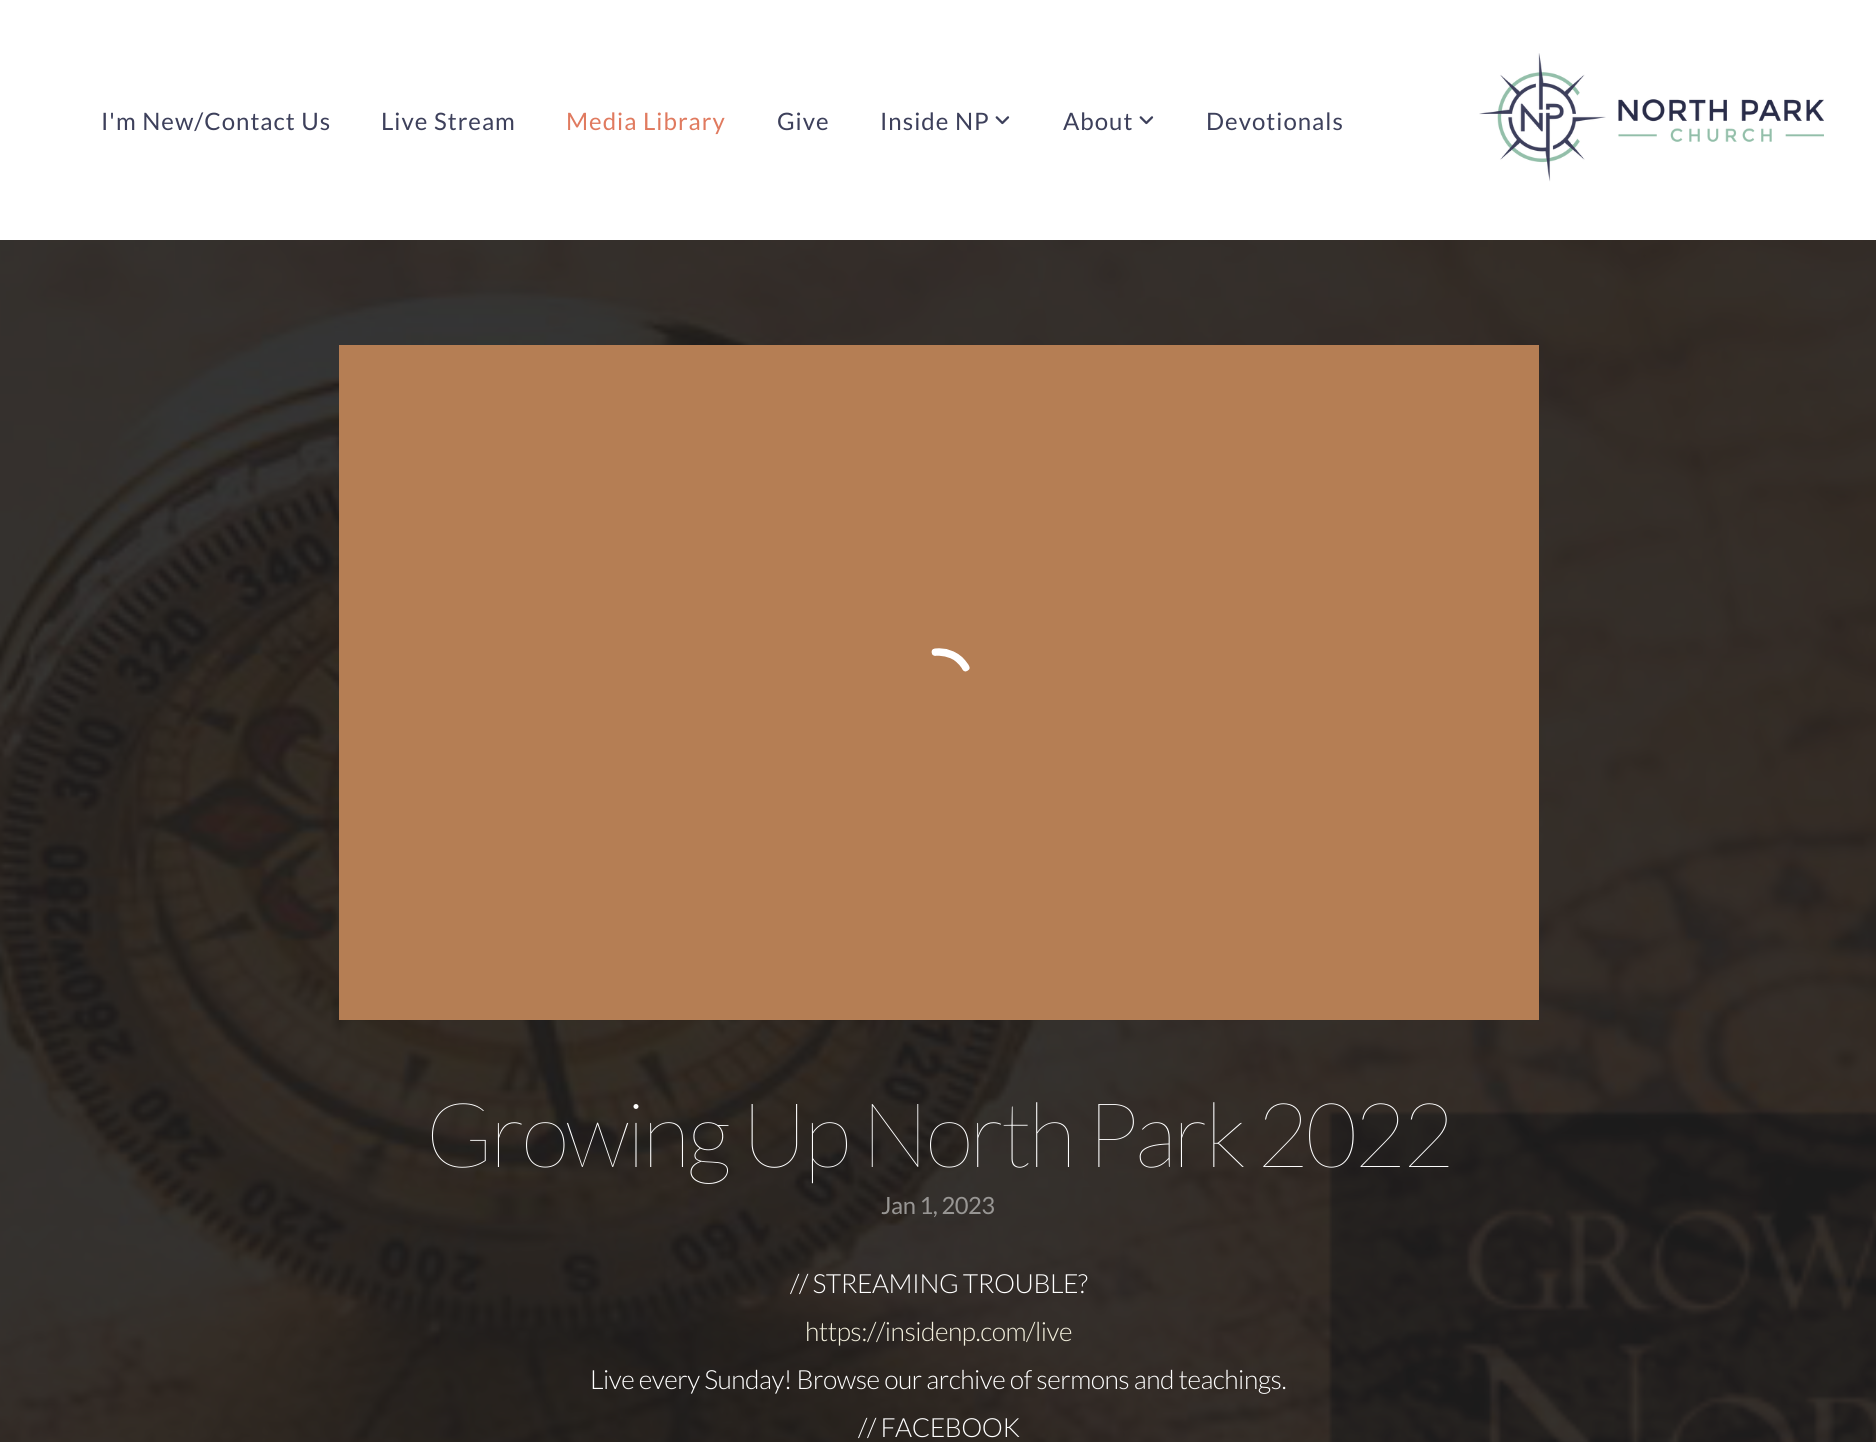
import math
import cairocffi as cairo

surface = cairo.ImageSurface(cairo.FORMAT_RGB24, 1876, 1442)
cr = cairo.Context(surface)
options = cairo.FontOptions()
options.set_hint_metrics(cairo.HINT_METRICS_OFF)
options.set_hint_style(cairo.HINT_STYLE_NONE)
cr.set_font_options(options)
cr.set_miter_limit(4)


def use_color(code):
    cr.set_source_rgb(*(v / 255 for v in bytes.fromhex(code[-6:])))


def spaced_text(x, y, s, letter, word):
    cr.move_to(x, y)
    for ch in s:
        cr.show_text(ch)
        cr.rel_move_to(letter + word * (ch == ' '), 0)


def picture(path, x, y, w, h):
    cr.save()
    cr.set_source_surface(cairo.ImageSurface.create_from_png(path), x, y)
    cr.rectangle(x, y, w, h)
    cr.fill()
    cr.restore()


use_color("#ffffff")
cr.paint()
cr.select_font_face("Lato")
cr.set_font_size(24)
use_color("#3d405b")
spaced_text(101, 130, "I'm New/Contact Us", 1, 0)
spaced_text(381, 130, "Live Stream", 1, 0)
use_color("#e07a5f")
spaced_text(566, 130, "Media Library", 1, 0)
use_color("#3d405b")
spaced_text(777, 130, "Give", 1, 0)
spaced_text(880, 130, "Inside NP", 1, 0)
picture("img1.png", 995, 116, 15, 9)
spaced_text(1063, 130, "About", 1, 0)
picture("img1.png", 1139, 116, 15, 9)
spaced_text(1206, 130, "Devotionals", 1, 0)
picture("img2.png", 1479, 53, 345, 129)
picture("img3.png", 0, 240, 1876, 1202)
picture("img4.png", 339, 345, 1200, 675)
cr.select_font_face("Lato Thin")
cr.set_font_size(90)
use_color("#ffffff")
spaced_text(425, 1167, "Growing Up North Park 2022", -3.6, 0)
cr.select_font_face("Lato")
cr.set_font_size(23.75)
use_color("#989694")
spaced_text(881, 1214, "Jan 1, 2023", -0.48, 0)
cr.select_font_face("Lato Light")
cr.set_font_size(26.4)
use_color("#ffffff")
spaced_text(790, 1293, "// STREAMING TROUBLE?", -0.48, 0)
use_color("#f4f1de")
spaced_text(805, 1341, "https://insidenp.com/live", -0.48, 0)
use_color("#ffffff")
spaced_text(590, 1389, "Live every Sunday! Browse our archive of sermons and teachings.", -0.48, 0)
spaced_text(858, 1437, "// FACEBOOK", -0.48, 0)
surface.write_to_png("result.png")
